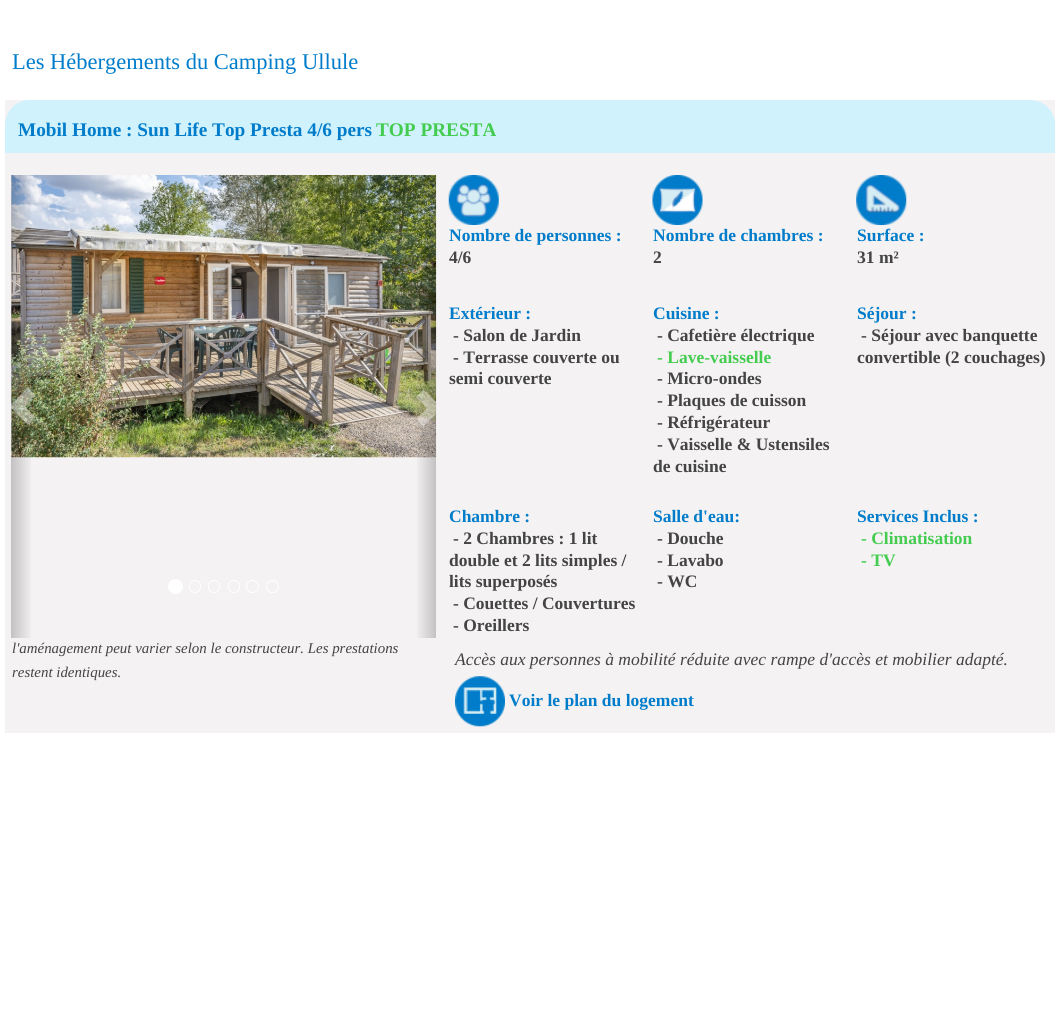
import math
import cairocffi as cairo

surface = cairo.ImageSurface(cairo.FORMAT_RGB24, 1060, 1012)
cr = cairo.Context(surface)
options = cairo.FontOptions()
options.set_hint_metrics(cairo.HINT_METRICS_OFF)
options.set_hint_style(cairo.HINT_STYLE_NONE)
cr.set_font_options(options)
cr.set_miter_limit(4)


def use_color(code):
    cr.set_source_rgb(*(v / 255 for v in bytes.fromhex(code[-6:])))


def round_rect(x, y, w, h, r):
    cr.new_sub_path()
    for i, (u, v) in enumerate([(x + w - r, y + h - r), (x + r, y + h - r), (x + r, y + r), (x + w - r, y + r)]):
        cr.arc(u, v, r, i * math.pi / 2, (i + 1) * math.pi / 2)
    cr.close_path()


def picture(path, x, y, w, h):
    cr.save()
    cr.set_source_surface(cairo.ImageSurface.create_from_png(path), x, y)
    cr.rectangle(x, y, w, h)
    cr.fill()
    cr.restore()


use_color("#ffffff")
cr.paint()
cr.select_font_face("Liberation Serif")
cr.set_font_size(22.5)
use_color("#007cca")
cr.move_to(12, 69)
cr.show_text("Les Hébergements du Camping Ullule")
use_color("#f4f2f2")
cr.rectangle(5, 100, 1050, 633)
cr.fill()
use_color("#d0f2fd")
cr.new_path()
cr.move_to(30, 100)
cr.line_to(1030, 100)
cr.curve_to(1044, 100, 1055, 111, 1055, 125)
cr.line_to(1055, 153)
cr.line_to(5, 153)
cr.line_to(5, 125)
cr.curve_to(5, 111, 16, 100, 30, 100)
cr.close_path()
cr.fill()
cr.select_font_face("Liberation Serif", cairo.FONT_SLANT_NORMAL, cairo.FONT_WEIGHT_BOLD)
cr.set_font_size(19.25)
use_color("#007cca")
cr.move_to(18, 136)
cr.show_text("Mobil Home : Sun Life Top Presta 4/6 pers")
use_color("#44cc50")
cr.move_to(376, 136)
cr.show_text("TOP PRESTA")
picture("img1.png", 11, 175, 426, 283)
gradient = cairo.LinearGradient(11, 406, 33, 406)
gradient.add_color_stop_rgba(0, 0, 0, 0, 0.2)
gradient.add_color_stop_rgba(1, 0, 0, 0, 0)
cr.set_source(gradient)
cr.rectangle(11, 175, 20, 463)
cr.fill()
cr.save()
cr.rectangle(11, 175, 425, 463)
cr.clip()
cr.set_source_rgba(1, 1, 1, 0.4)
cr.new_path()
cr.move_to(9.5, 406.5)
cr.line_to(28, 425)
cr.line_to(35.5, 417.5)
cr.line_to(24.5, 406)
cr.line_to(35.5, 395)
cr.line_to(28, 387.5)
cr.close_path()
cr.fill()
cr.restore()
use_color("#ffffff")
cr.arc(175.5, 586.5, 7, 0, 2 * math.pi)
cr.fill_preserve()
cr.set_line_width(1)
cr.stroke()
round_rect(189.5, 580.5, 11, 12, 5.5)
cr.stroke()
round_rect(208.5, 580.5, 11, 12, 5.5)
cr.stroke()
round_rect(228.5, 580.5, 11, 12, 5.5)
cr.stroke()
cr.arc(252.5, 586.5, 6, 0, 2 * math.pi)
cr.stroke()
cr.arc(272.5, 586.5, 6, 0, 2 * math.pi)
cr.stroke()
gradient = cairo.LinearGradient(415, 406, 436, 406)
gradient.add_color_stop_rgba(0, 0, 0, 0, 0)
gradient.add_color_stop_rgba(1, 0, 0, 0, 0.2)
cr.set_source(gradient)
cr.rectangle(417, 175, 19, 463)
cr.fill()
cr.save()
cr.rectangle(11, 175, 425, 463)
cr.clip()
cr.set_source_rgba(1, 1, 1, 0.4)
cr.new_path()
cr.move_to(416, 419)
cr.line_to(427, 408)
cr.line_to(416, 397)
cr.line_to(423.5, 389.5)
cr.line_to(442, 408)
cr.line_to(423.5, 426.5)
cr.close_path()
cr.fill()
cr.restore()
cr.select_font_face("Liberation Serif", cairo.FONT_SLANT_ITALIC)
cr.set_font_size(14.9)
use_color("#444444")
cr.move_to(12, 653)
cr.show_text("l'aménagement peut varier selon le constructeur. Les prestations")
cr.move_to(12, 677)
cr.show_text("restent identiques.")
picture("img2.png", 448, 175, 51, 50)
cr.select_font_face("Liberation Serif", cairo.FONT_SLANT_NORMAL, cairo.FONT_WEIGHT_BOLD)
cr.set_font_size(17.5)
use_color("#007cca")
cr.move_to(449, 241)
cr.show_text("Nombre de personnes :")
use_color("#444444")
cr.move_to(449, 263)
cr.show_text("4/6")
picture("img3.png", 652, 175, 51, 50)
use_color("#007cca")
cr.move_to(653, 241)
cr.show_text("Nombre de chambres :")
use_color("#444444")
cr.move_to(653, 263)
cr.show_text("2")
picture("img4.png", 856, 175, 51, 50)
use_color("#007cca")
cr.move_to(857, 241)
cr.show_text("Surface :")
use_color("#444444")
cr.move_to(857, 263)
cr.show_text("31 m²")
use_color("#007cca")
cr.move_to(449, 319)
cr.show_text("Extérieur :")
use_color("#444444")
cr.move_to(453, 341)
cr.show_text("- Salon de Jardin")
cr.move_to(453, 363)
cr.show_text("- Terrasse couverte ou")
cr.move_to(449, 384)
cr.show_text("semi couverte")
use_color("#007cca")
cr.move_to(653, 319)
cr.show_text("Cuisine :")
use_color("#444444")
cr.move_to(657, 341)
cr.show_text("- Cafetière électrique")
use_color("#44cc50")
cr.move_to(657, 363)
cr.show_text("- Lave-vaisselle")
use_color("#444444")
cr.move_to(657, 384)
cr.show_text("- Micro-ondes")
cr.move_to(657, 406)
cr.show_text("- Plaques de cuisson")
cr.move_to(657, 428)
cr.show_text("- Réfrigérateur")
cr.move_to(657, 450)
cr.show_text("- Vaisselle & Ustensiles")
cr.move_to(653, 472)
cr.show_text("de cuisine")
use_color("#007cca")
cr.move_to(857, 319)
cr.show_text("Séjour :")
use_color("#444444")
cr.move_to(861, 341)
cr.show_text("- Séjour avec banquette")
cr.move_to(857, 363)
cr.show_text("convertible (2 couchages)")
use_color("#007cca")
cr.move_to(449, 522)
cr.show_text("Chambre :")
use_color("#444444")
cr.move_to(453, 544)
cr.show_text("- 2 Chambres : 1 lit")
cr.move_to(449, 566)
cr.show_text("double et 2 lits simples /")
cr.move_to(449, 587)
cr.show_text("lits superposés")
cr.move_to(453, 609)
cr.show_text("- Couettes / Couvertures")
cr.move_to(453, 631)
cr.show_text("- Oreillers")
use_color("#007cca")
cr.move_to(653, 522)
cr.show_text("Salle d'eau:")
use_color("#444444")
cr.move_to(657, 544)
cr.show_text("- Douche")
cr.move_to(657, 566)
cr.show_text("- Lavabo")
cr.move_to(657, 587)
cr.show_text("- WC")
use_color("#007cca")
cr.move_to(857, 522)
cr.show_text("Services Inclus :")
use_color("#44cc50")
cr.move_to(861, 544)
cr.show_text("- Climatisation")
cr.move_to(861, 566)
cr.show_text("- TV")
cr.select_font_face("Liberation Serif", cairo.FONT_SLANT_ITALIC)
use_color("#444444")
cr.move_to(455, 665)
cr.show_text("Accès aux personnes à mobilité réduite avec rampe d'accès et mobilier adapté.")
picture("img5.png", 455, 676, 50, 51)
cr.select_font_face("Liberation Serif", cairo.FONT_SLANT_NORMAL, cairo.FONT_WEIGHT_BOLD)
use_color("#007cca")
cr.move_to(509, 706)
cr.show_text("Voir le plan du logement")
surface.write_to_png("result.png")
